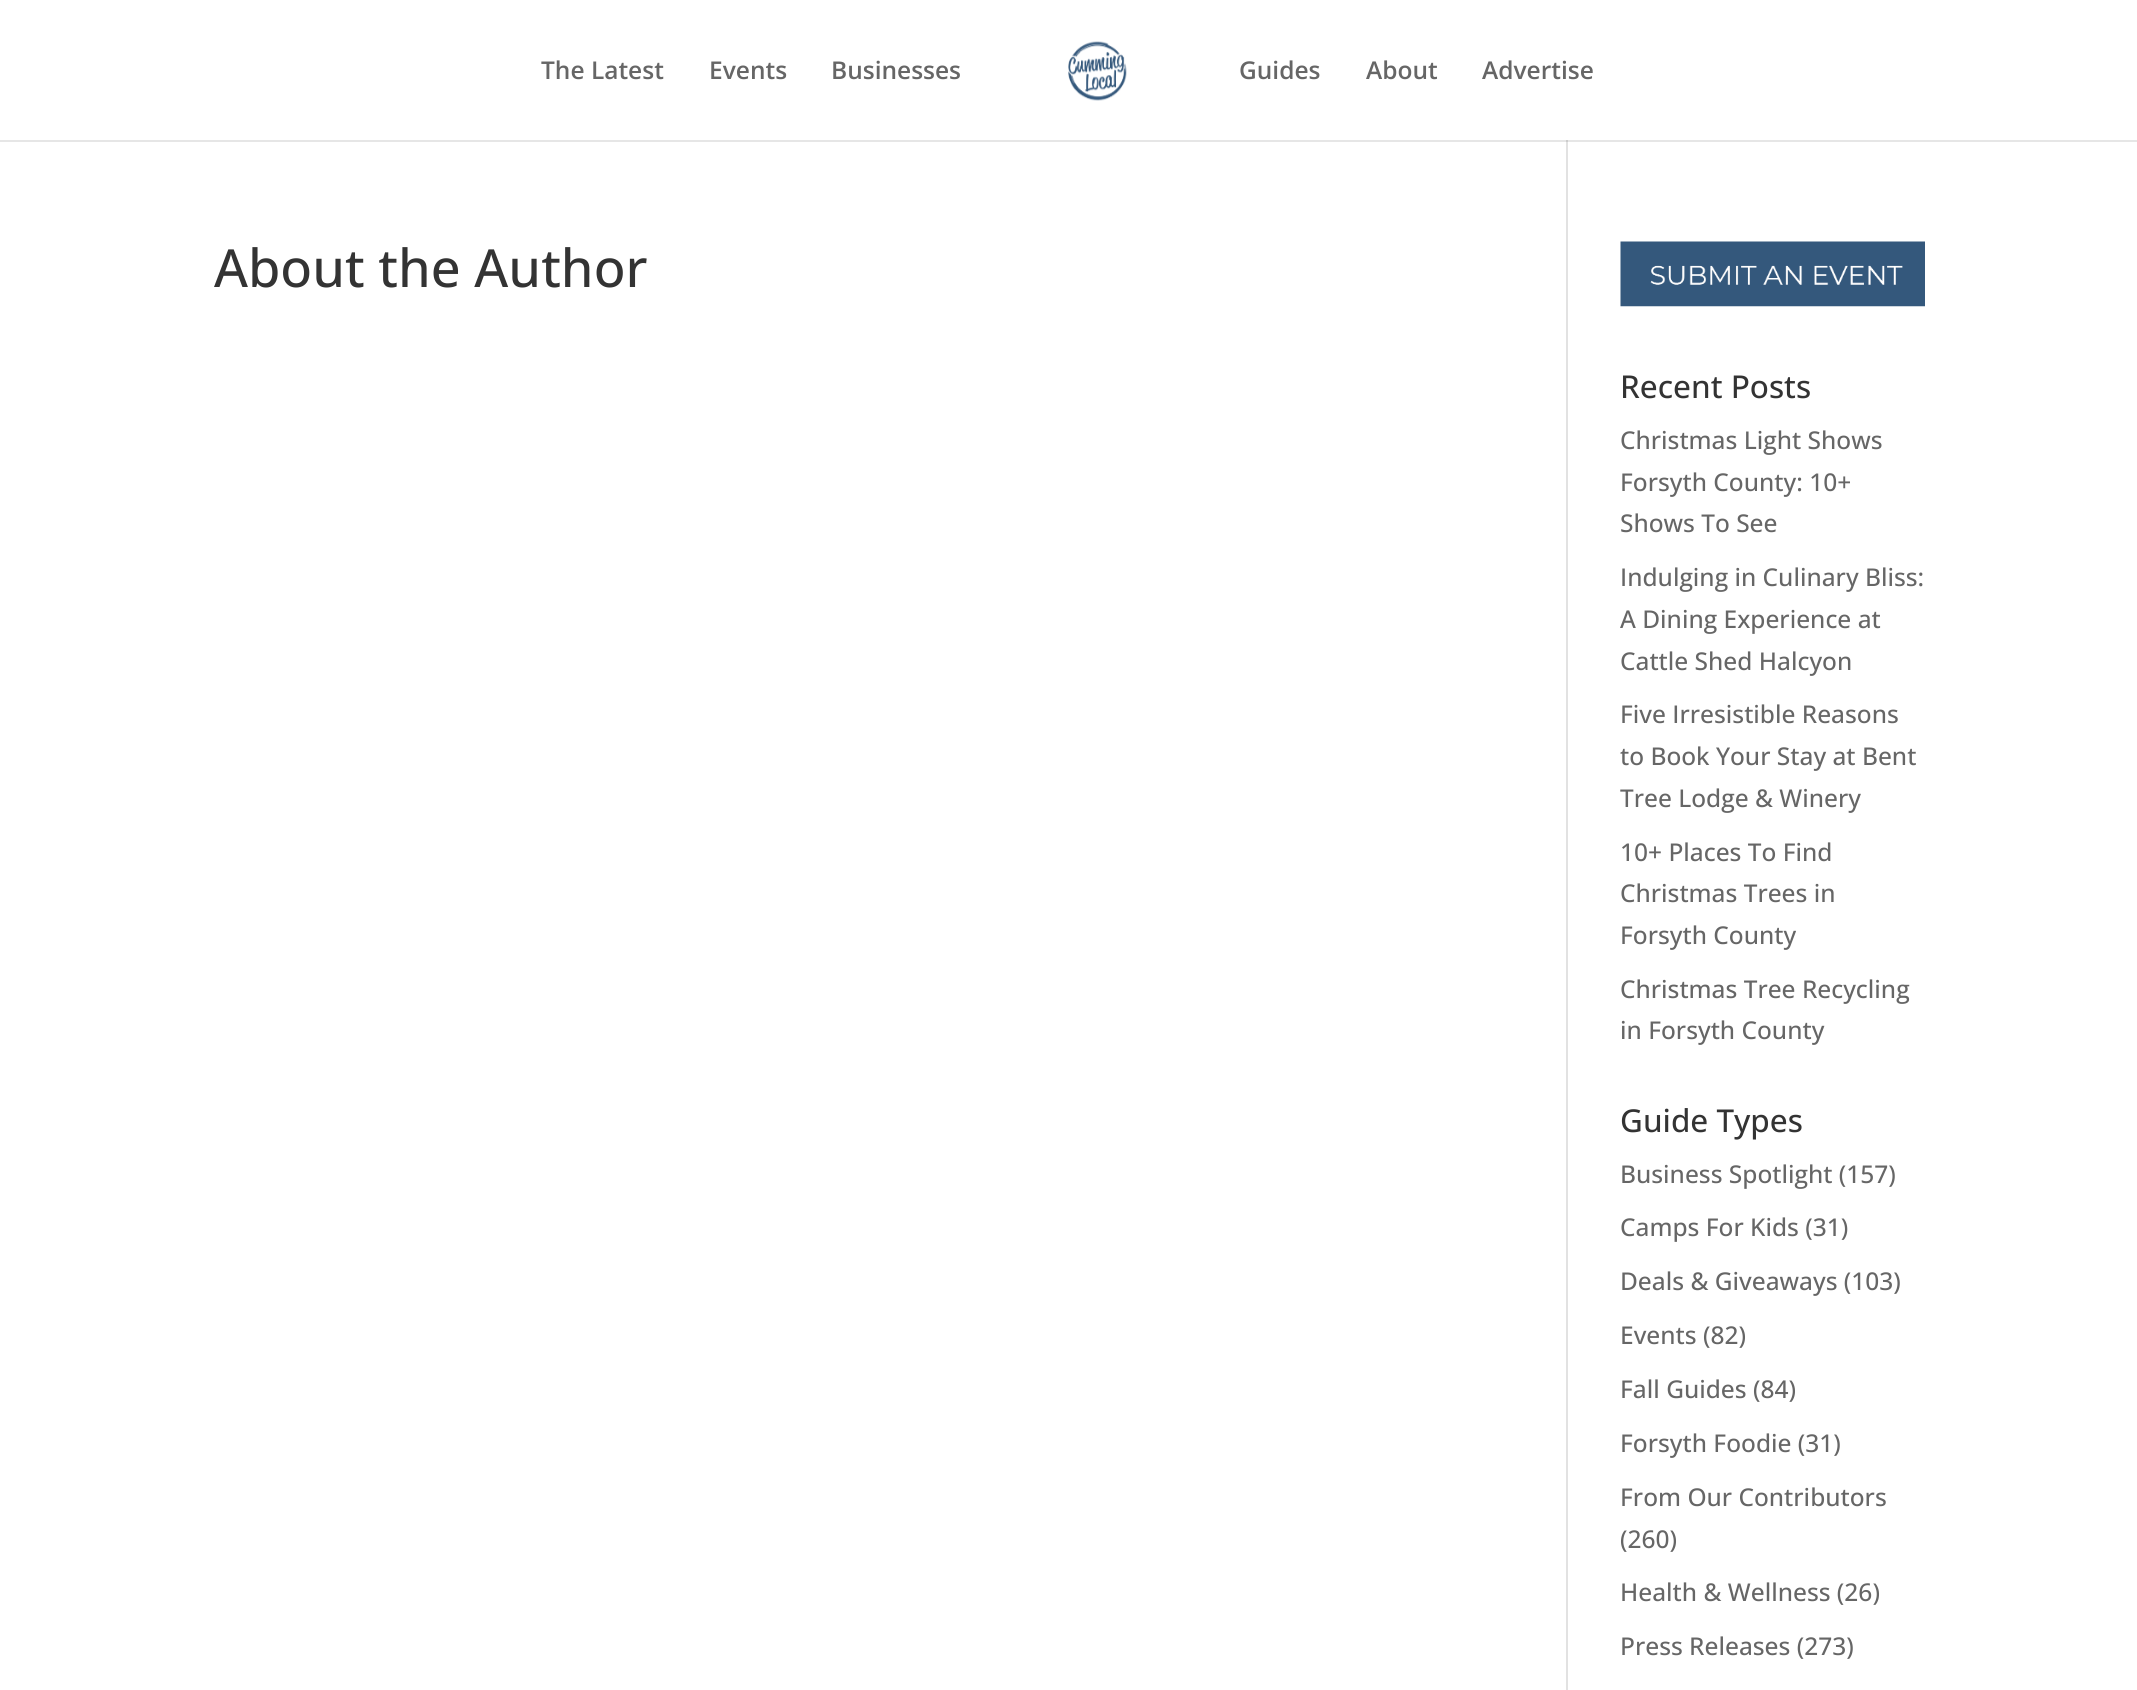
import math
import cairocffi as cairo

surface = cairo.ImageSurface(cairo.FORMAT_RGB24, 2137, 1690)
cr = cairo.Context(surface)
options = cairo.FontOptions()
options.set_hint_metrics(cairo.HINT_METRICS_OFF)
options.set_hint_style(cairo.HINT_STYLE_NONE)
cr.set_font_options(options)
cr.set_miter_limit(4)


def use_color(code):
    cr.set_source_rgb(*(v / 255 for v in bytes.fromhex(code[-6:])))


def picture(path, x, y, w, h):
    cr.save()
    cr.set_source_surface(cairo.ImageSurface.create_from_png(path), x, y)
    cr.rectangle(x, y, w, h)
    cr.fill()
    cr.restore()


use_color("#ffffff")
cr.paint()
use_color("#e2e2e2")
cr.rectangle(1566, 140, 2, 1550)
cr.fill()
cr.set_source_rgba(0, 0, 0, 0.1)
cr.new_path()
cr.move_to(0, 140)
cr.line_to(0, 142)
cr.line_to(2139, 142)
cr.line_to(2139, 2)
cr.line_to(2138, 2)
cr.line_to(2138, 140)
cr.close_path()
cr.fill()
cr.select_font_face("Open Sans SemiBold")
cr.set_font_size(24.5)
use_color("#666666")
cr.move_to(541, 79)
cr.show_text("The Latest")
cr.move_to(709, 79)
cr.show_text("Events")
cr.move_to(831, 79)
cr.show_text("Businesses")
picture("img1.png", 1068, 41, 59, 60)
cr.move_to(1239, 79)
cr.show_text("Guides")
cr.move_to(1366, 79)
cr.show_text("About")
cr.move_to(1482, 79)
cr.show_text("Advertise")
cr.select_font_face("Open Sans Medium")
cr.set_font_size(52.5)
use_color("#333333")
cr.move_to(214, 287)
cr.show_text("About the Author")
picture("img2.png", 1620, 241, 305, 66)
cr.set_font_size(31.5)
cr.move_to(1620, 398)
cr.show_text("Recent Posts")
cr.set_font_size(24.5)
use_color("#666666")
cr.move_to(1620, 449)
cr.show_text("Christmas Light Shows")
cr.move_to(1620, 491)
cr.show_text("Forsyth County: 10+")
cr.move_to(1620, 532)
cr.show_text("Shows To See")
cr.move_to(1620, 586)
cr.show_text("Indulging in Culinary Bliss:")
cr.move_to(1620, 628)
cr.show_text("A Dining Experience at")
cr.move_to(1620, 670)
cr.show_text("Cattle Shed Halcyon")
cr.move_to(1620, 723)
cr.show_text("Five Irresistible Reasons")
cr.move_to(1620, 765)
cr.show_text("to Book Your Stay at Bent")
cr.move_to(1620, 807)
cr.show_text("Tree Lodge & Winery")
cr.move_to(1620, 861)
cr.show_text("10+ Places To Find")
cr.move_to(1620, 902)
cr.show_text("Christmas Trees in")
cr.move_to(1620, 944)
cr.show_text("Forsyth County")
cr.move_to(1620, 998)
cr.show_text("Christmas Tree Recycling")
cr.move_to(1620, 1039)
cr.show_text("in Forsyth County")
cr.set_font_size(31.5)
use_color("#333333")
cr.move_to(1620, 1132)
cr.show_text("Guide Types")
cr.set_font_size(24.5)
use_color("#666666")
cr.move_to(1620, 1183)
cr.show_text("Business Spotlight (157)")
cr.move_to(1620, 1236)
cr.show_text("Camps For Kids (31)")
cr.move_to(1620, 1290)
cr.show_text("Deals & Giveaways (103)")
cr.move_to(1620, 1344)
cr.show_text("Events (82)")
cr.move_to(1620, 1398)
cr.show_text("Fall Guides (84)")
cr.move_to(1620, 1452)
cr.show_text("Forsyth Foodie (31)")
cr.move_to(1620, 1506)
cr.show_text("From Our Contributors")
cr.move_to(1620, 1548)
cr.show_text("(260)")
cr.move_to(1620, 1601)
cr.show_text("Health & Wellness (26)")
cr.move_to(1620, 1655)
cr.show_text("Press Releases (273)")
surface.write_to_png("result.png")
